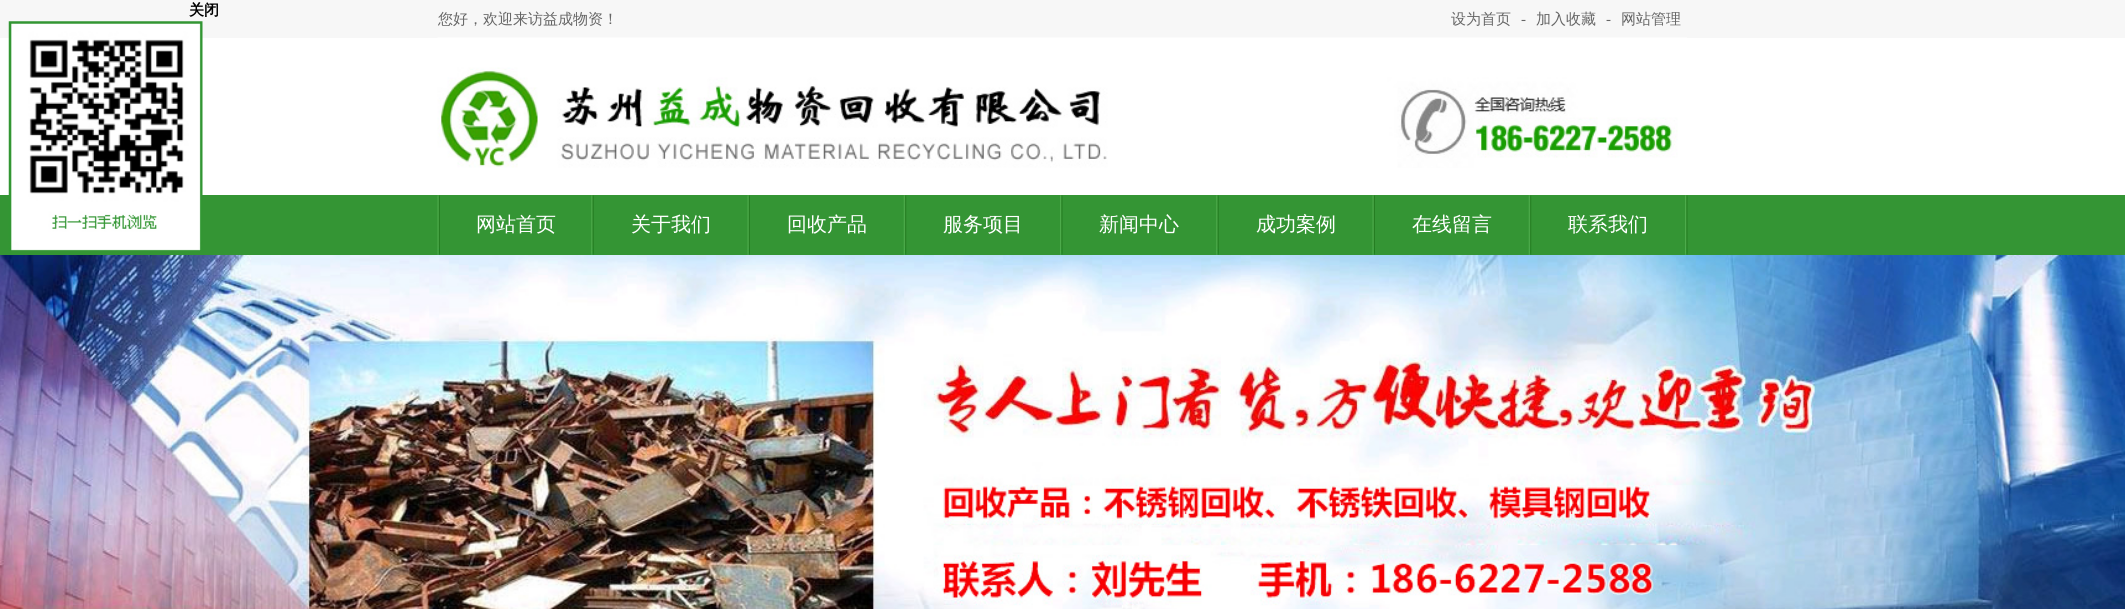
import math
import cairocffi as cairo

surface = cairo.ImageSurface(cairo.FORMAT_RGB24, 2125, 609)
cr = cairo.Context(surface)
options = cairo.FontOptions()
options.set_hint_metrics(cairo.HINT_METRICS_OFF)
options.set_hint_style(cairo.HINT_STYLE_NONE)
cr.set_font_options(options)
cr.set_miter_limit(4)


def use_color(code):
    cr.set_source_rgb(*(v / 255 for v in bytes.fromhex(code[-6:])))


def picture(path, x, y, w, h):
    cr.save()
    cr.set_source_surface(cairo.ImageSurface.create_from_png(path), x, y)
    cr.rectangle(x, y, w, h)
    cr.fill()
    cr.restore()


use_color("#ffffff")
cr.paint()
use_color("#f7f7f7")
cr.rectangle(0, 0, 2125, 38)
cr.fill()
cr.select_font_face("WenQuanYi Zen Hei", cairo.FONT_SLANT_NORMAL, cairo.FONT_WEIGHT_BOLD)
cr.set_font_size(15)
use_color("#000000")
cr.move_to(189, 15)
cr.show_text("关闭")
use_color("#349534")
cr.rectangle(0, 195, 2125, 60)
cr.fill()
picture("img1.png", 8, 21, 195, 230)
cr.select_font_face("WenQuanYi Zen Hei Medium")
use_color("#666666")
cr.move_to(438, 24)
cr.show_text("您好，欢迎来访益成物资！")
cr.move_to(1451, 24)
cr.show_text("设为首页")
cr.select_font_face("Liberation Serif")
cr.move_to(1521, 24)
cr.show_text("-")
cr.select_font_face("WenQuanYi Zen Hei Medium")
cr.move_to(1536, 24)
cr.show_text("加入收藏")
cr.select_font_face("Liberation Serif")
cr.move_to(1606, 24)
cr.show_text("-")
cr.select_font_face("WenQuanYi Zen Hei Medium")
cr.move_to(1621, 24)
cr.show_text("网站管理")
picture("img2.png", 437, 37, 1250, 131)
picture("img3.png", 437, 195, 3, 60)
cr.set_font_size(20)
use_color("#ffffff")
cr.move_to(476, 231)
cr.show_text("网站首页")
picture("img4.png", 591, 195, 3, 60)
cr.move_to(631, 231)
cr.show_text("关于我们")
picture("img3.png", 747, 195, 3, 60)
cr.move_to(787, 231)
cr.show_text("回收产品")
picture("img5.png", 903, 195, 4, 60)
cr.move_to(943, 231)
cr.show_text("服务项目")
picture("img6.png", 1060, 195, 3, 60)
cr.move_to(1099, 231)
cr.show_text("新闻中心")
picture("img4.png", 1216, 195, 3, 60)
cr.move_to(1256, 231)
cr.show_text("成功案例")
picture("img3.png", 1372, 195, 3, 60)
cr.move_to(1412, 231)
cr.show_text("在线留言")
picture("img5.png", 1528, 195, 4, 60)
cr.move_to(1568, 231)
cr.show_text("联系我们")
picture("img6.png", 1685, 195, 3, 60)
picture("img7.png", 0, 255, 2125, 354)
surface.write_to_png("result.png")
